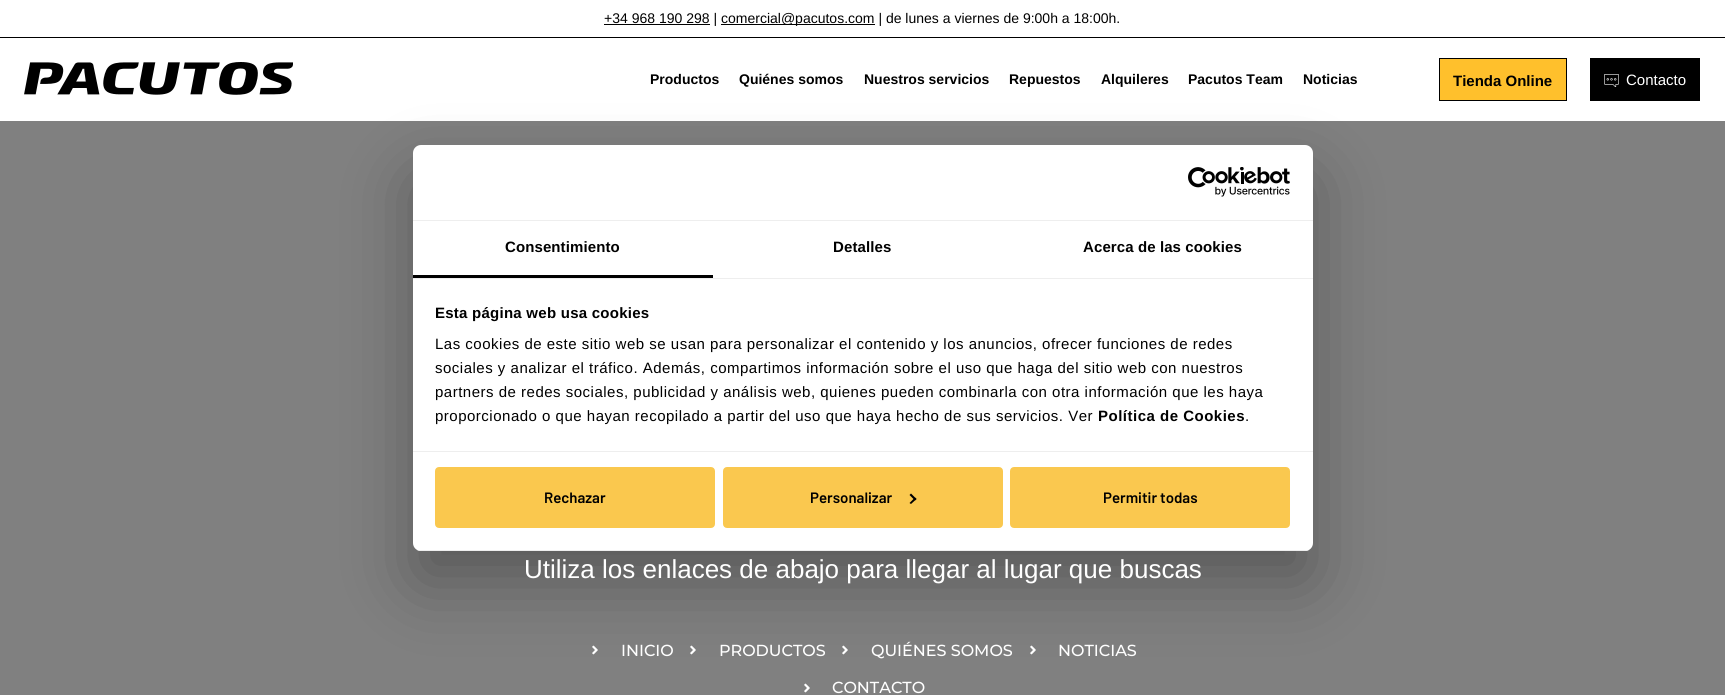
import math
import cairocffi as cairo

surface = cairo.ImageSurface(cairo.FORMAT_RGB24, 1725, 695)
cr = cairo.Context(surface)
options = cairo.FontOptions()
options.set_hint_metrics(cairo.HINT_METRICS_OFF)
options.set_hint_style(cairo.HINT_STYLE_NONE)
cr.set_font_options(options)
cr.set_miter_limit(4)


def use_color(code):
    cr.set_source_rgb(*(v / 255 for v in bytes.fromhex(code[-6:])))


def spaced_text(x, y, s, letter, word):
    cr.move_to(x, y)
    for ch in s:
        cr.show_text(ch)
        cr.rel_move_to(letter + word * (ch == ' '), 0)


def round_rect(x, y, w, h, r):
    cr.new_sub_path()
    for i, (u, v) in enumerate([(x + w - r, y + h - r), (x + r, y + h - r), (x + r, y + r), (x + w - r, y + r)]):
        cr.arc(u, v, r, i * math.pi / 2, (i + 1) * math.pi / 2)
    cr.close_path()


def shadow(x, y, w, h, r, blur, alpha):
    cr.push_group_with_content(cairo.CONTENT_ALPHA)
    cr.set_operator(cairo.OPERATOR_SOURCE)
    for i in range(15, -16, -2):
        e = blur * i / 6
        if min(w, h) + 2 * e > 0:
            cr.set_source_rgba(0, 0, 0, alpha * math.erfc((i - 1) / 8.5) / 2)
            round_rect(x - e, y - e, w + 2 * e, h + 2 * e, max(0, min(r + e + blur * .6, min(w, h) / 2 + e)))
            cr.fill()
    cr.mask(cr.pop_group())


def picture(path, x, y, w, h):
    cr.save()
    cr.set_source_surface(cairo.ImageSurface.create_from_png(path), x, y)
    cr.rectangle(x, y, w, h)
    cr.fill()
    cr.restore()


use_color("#ffffff")
cr.paint()
use_color("#000000")
cr.rectangle(0, 37, 1725, 1)
cr.fill()
cr.rectangle(604, 24, 106, 1)
cr.fill()
cr.select_font_face("Liberation Sans")
cr.set_font_size(14)
cr.move_to(604, 23)
cr.show_text("+34 968 190 298 |")
cr.rectangle(721, 24, 154, 1)
cr.fill()
cr.move_to(721, 23)
cr.show_text("comercial@pacutos.com | de lunes a viernes de 9:00h a 18:00h.")
picture("img1.png", 24, 62, 269, 33)
cr.select_font_face("Liberation Sans", cairo.FONT_SLANT_NORMAL, cairo.FONT_WEIGHT_BOLD)
cr.move_to(650, 84)
cr.show_text("Productos")
cr.move_to(739, 84)
cr.show_text("Quiénes somos")
cr.move_to(864, 84)
cr.show_text("Nuestros servicios")
cr.move_to(1009, 84)
cr.show_text("Repuestos")
cr.move_to(1101, 84)
cr.show_text("Alquileres")
cr.move_to(1188, 84)
cr.show_text("Pacutos Team")
cr.move_to(1303, 84)
cr.show_text("Noticias")
use_color("#ffc02c")
cr.rectangle(1439.5, 58.5, 127, 42)
cr.fill_preserve()
use_color("#000000")
cr.set_line_width(1)
cr.stroke()
cr.set_font_size(15)
cr.move_to(1453, 86)
cr.show_text("Tienda Online")
cr.rectangle(1590, 58, 110, 43)
cr.fill()
picture("img2.png", 1604, 74, 15, 13)
cr.select_font_face("Liberation Sans")
use_color("#ffffff")
cr.move_to(1626, 85)
cr.show_text("Contacto")
use_color("#808080")
cr.rectangle(0, 121, 1725, 574)
cr.fill()
picture("img4.png", 592, 645, 6, 10)
picture("img4.png", 690, 645, 6, 10)
picture("img4.png", 842, 645, 6, 10)
picture("img4.png", 1030, 645, 6, 10)
picture("img4.png", 804, 683, 6, 10)
use_color("#000000")
shadow(413, 177, 900, 406, 8, 34, 0.3)
use_color("#ffffff")
round_rect(413, 145, 900, 406, 8)
cr.fill()
use_color("#eeeeee")
cr.rectangle(413, 220, 900, 1)
cr.fill()
picture("img3.png", 1188, 167, 102, 30)
cr.rectangle(413, 278, 900, 1)
cr.fill()
use_color("#000000")
cr.rectangle(413, 275, 300, 3)
cr.fill()
cr.select_font_face("Liberation Sans", cairo.FONT_SLANT_NORMAL, cairo.FONT_WEIGHT_BOLD)
spaced_text(505, 252, "Consentimiento", 0.1, 0)
spaced_text(833, 252, "Detalles", 0.1, 0)
spaced_text(1083, 252, "Acerca de las cookies", 0.1, 0)
use_color("#eeeeee")
cr.rectangle(413, 451, 900, 1)
cr.fill()
use_color("#000000")
spaced_text(435, 318, "Esta página web usa cookies", 0.25, 0)
cr.select_font_face("Liberation Sans")
spaced_text(435, 349, "Las cookies de este sitio web se usan para personalizar el contenido y los anuncios, ofrecer funciones de redes", 0.5, 0)
spaced_text(435, 373, "sociales y analizar el tráfico. Además, compartimos información sobre el uso que haga del sitio web con nuestros", 0.5, 0)
spaced_text(435, 397, "partners de redes sociales, publicidad y análisis web, quienes pueden combinarla con otra información que les haya", 0.5, 0)
spaced_text(435, 421, "proporcionado o que hayan recopilado a partir del uso que haya hecho de sus servicios. Ver", 0.5, 0)
cr.select_font_face("Liberation Sans", cairo.FONT_SLANT_NORMAL, cairo.FONT_WEIGHT_BOLD)
spaced_text(1098, 421, "Política de Cookies", 0.5, 0)
cr.select_font_face("Liberation Sans")
spaced_text(1245, 421, ".", 0.5, 0)
cr.save()
round_rect(413, 145, 900, 406, 8)
cr.clip()
use_color("#eeeeee")
cr.rectangle(413, 550, 900, 1)
cr.fill()
cr.restore()
use_color("#fac84e")
round_rect(436, 468, 278, 59, 3)
cr.fill_preserve()
cr.set_line_width(2)
cr.stroke()
cr.select_font_face("Barlow SemiBold")
use_color("#000000")
cr.move_to(544, 503)
cr.show_text("Rechazar")
use_color("#fac84f")
round_rect(724, 468, 278, 59, 3)
cr.fill_preserve()
cr.stroke()
use_color("#000000")
cr.move_to(810, 503)
cr.show_text("Personalizar")
cr.new_path()
cr.move_to(911, 493.5)
cr.line_to(916.5, 499)
cr.line_to(915, 500.5)
cr.line_to(909.5, 495)
cr.close_path()
cr.fill()
cr.new_path()
cr.move_to(915, 497.5)
cr.line_to(916.5, 499)
cr.line_to(911, 504)
cr.line_to(909.5, 503)
cr.close_path()
cr.fill()
use_color("#fac84f")
round_rect(1011, 468, 278, 59, 3)
cr.fill_preserve()
cr.stroke()
use_color("#000000")
cr.move_to(1103, 503)
cr.show_text("Permitir todas")
cr.select_font_face("Liberation Sans")
cr.set_font_size(26)
use_color("#ffffff")
cr.move_to(524, 578)
cr.show_text("Utiliza los enlaces de abajo para llegar al lugar que buscas")
cr.select_font_face("Montserrat Medium")
cr.set_font_size(16)
cr.move_to(621, 656)
cr.show_text("INICIO")
cr.move_to(719, 656)
cr.show_text("PRODUCTOS")
cr.move_to(871, 656)
cr.show_text("QUIÉNES SOMOS")
cr.move_to(1058, 656)
cr.show_text("NOTICIAS")
cr.move_to(832, 693)
cr.show_text("CONTACTO")
surface.write_to_png("result.png")
